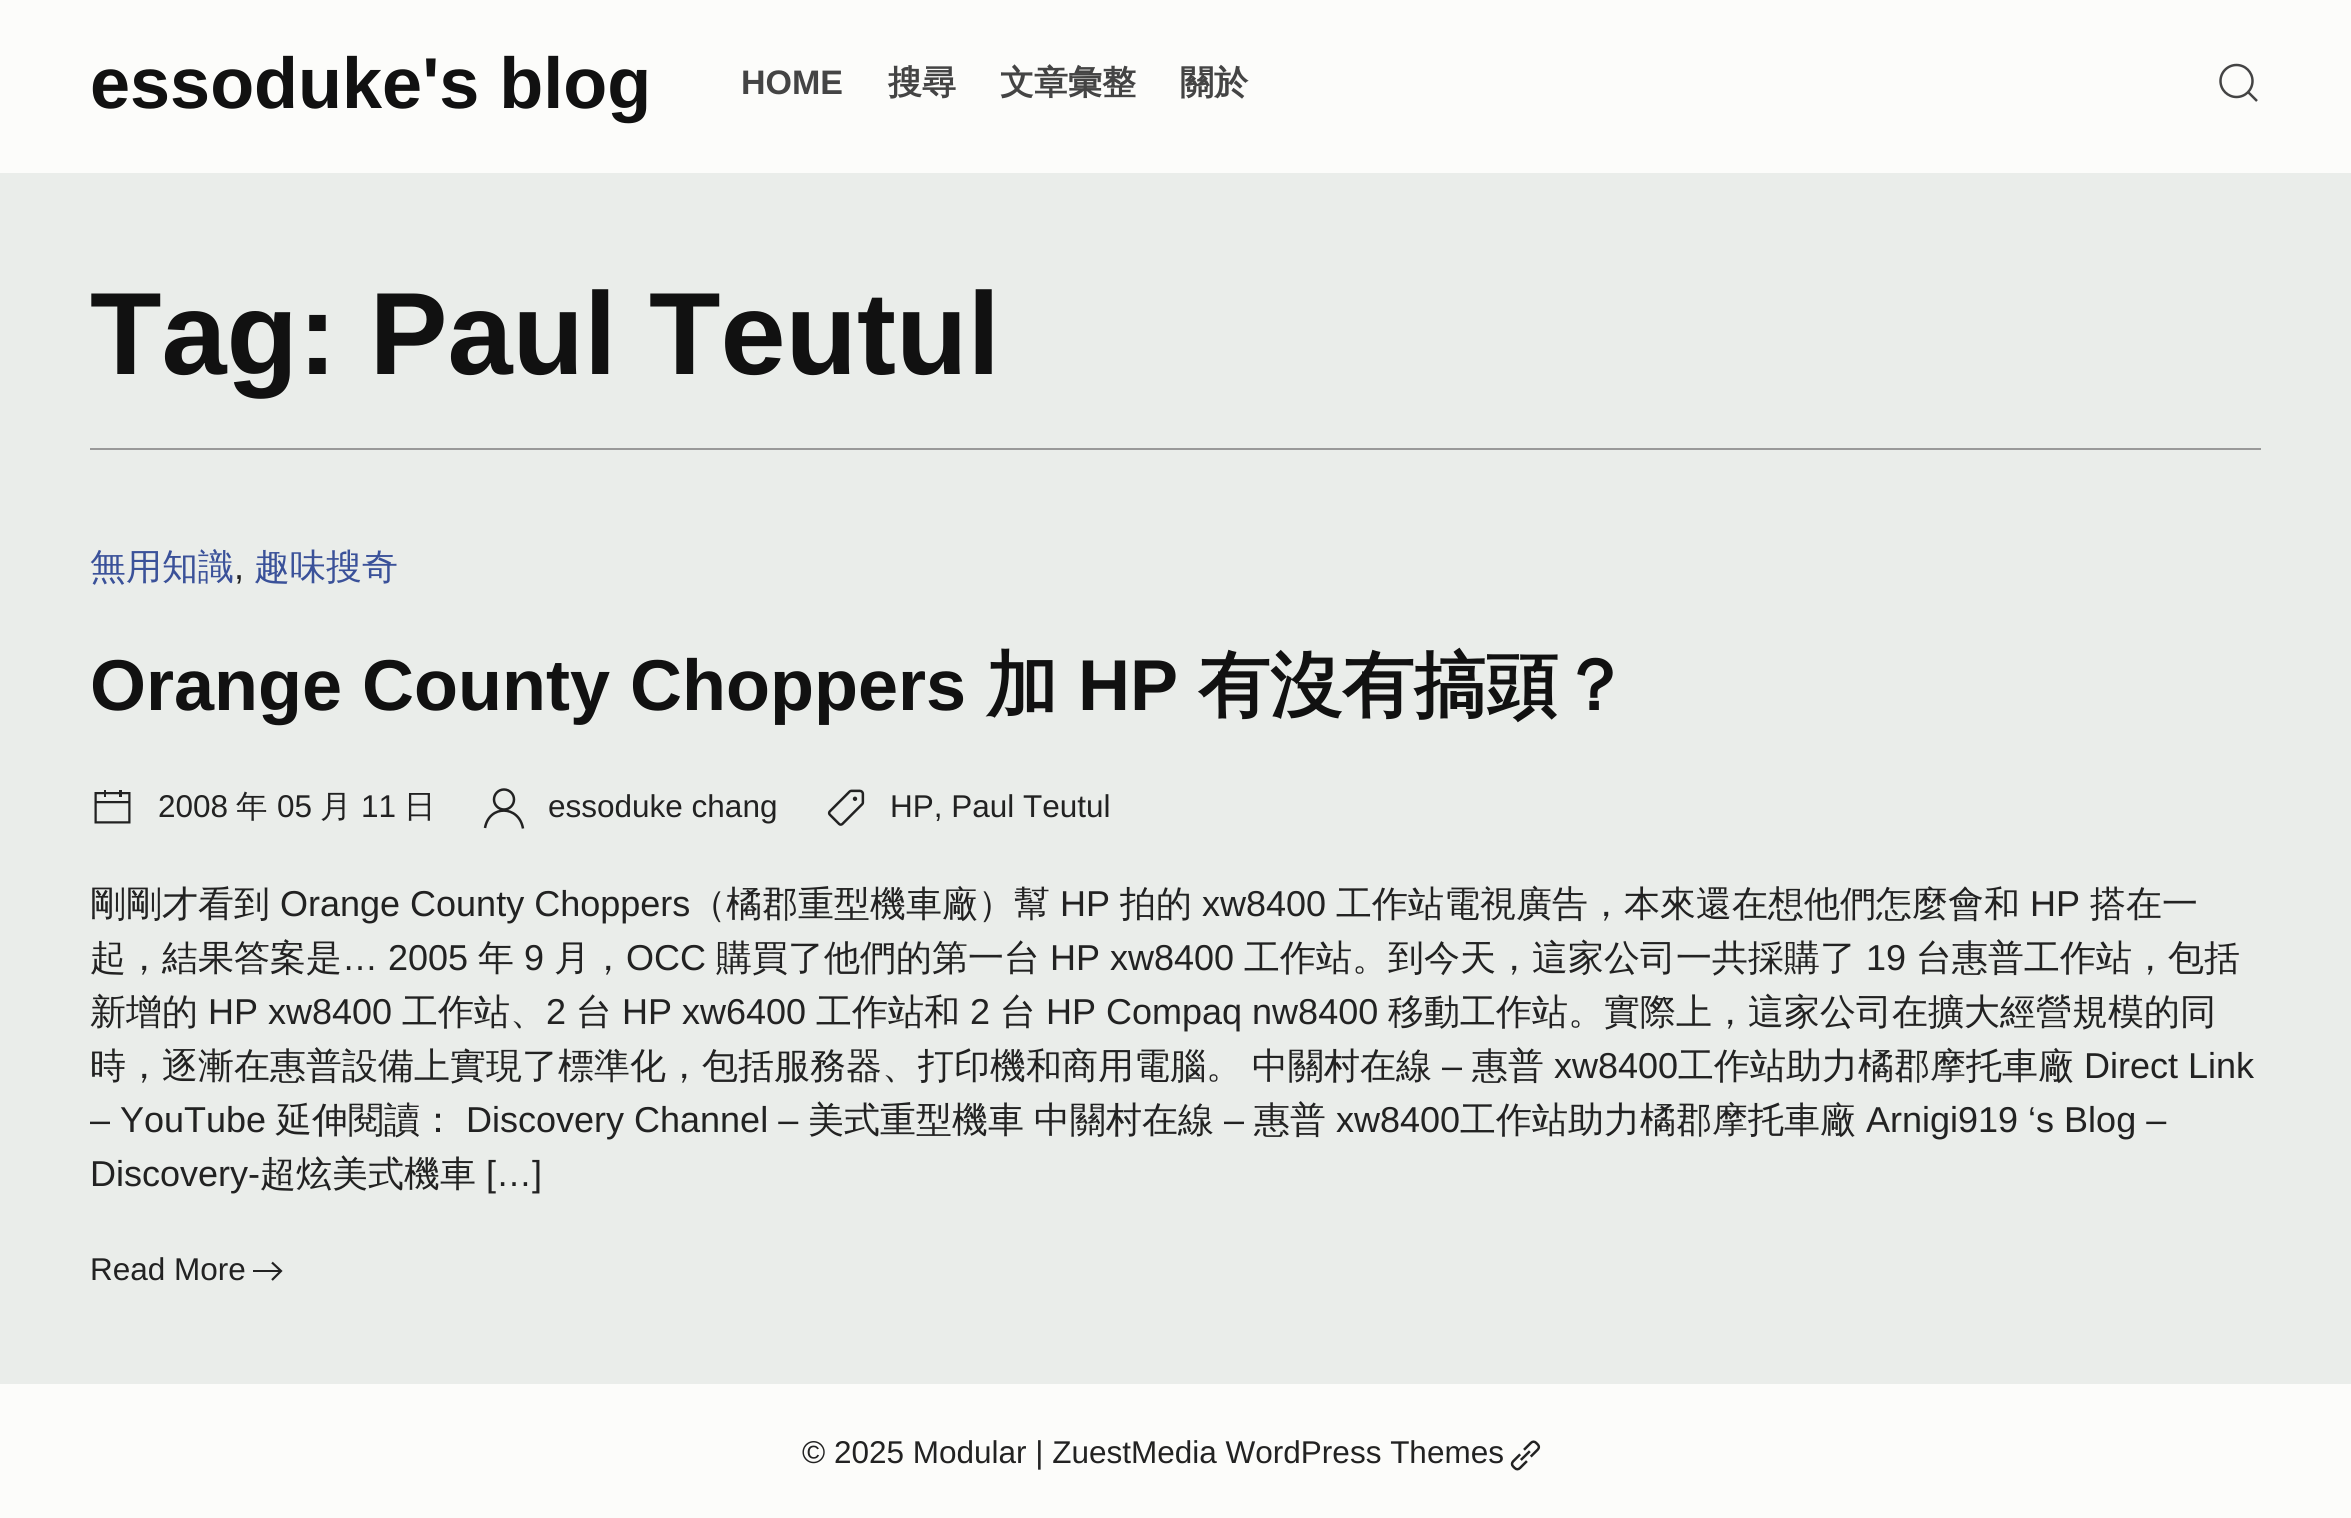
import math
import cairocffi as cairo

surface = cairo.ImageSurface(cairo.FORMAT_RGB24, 2351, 1518)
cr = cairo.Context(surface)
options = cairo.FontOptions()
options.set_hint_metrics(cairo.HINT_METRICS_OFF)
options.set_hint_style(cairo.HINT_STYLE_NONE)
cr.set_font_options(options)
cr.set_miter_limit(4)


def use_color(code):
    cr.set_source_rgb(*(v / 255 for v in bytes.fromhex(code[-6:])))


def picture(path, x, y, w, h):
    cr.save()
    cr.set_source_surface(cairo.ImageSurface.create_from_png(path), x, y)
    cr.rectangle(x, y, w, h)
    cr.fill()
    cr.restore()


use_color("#fcfcfa")
cr.paint()
cr.select_font_face("Liberation Sans", cairo.FONT_SLANT_NORMAL, cairo.FONT_WEIGHT_BOLD)
cr.set_font_size(72)
use_color("#111111")
cr.move_to(90, 108)
cr.show_text("essoduke's blog")
cr.set_font_size(34)
use_color("#444444")
cr.move_to(741, 94)
cr.show_text("HOME")
cr.select_font_face("WenQuanYi Zen Hei", cairo.FONT_SLANT_NORMAL, cairo.FONT_WEIGHT_BOLD)
cr.move_to(888, 94)
cr.show_text("搜尋")
cr.move_to(1000, 94)
cr.show_text("文章彙整")
cr.move_to(1180, 94)
cr.show_text("關於")
cr.new_path()
cr.arc(2236.5, 81, 16, 0, 2 * math.pi)
cr.set_line_width(2.5)
cr.stroke()
cr.new_path()
cr.move_to(2248, 92)
cr.line_to(2257, 101)
cr.close_path()
cr.stroke()
use_color("#eaedea")
cr.rectangle(0, 173, 2351, 1211)
cr.fill()
cr.select_font_face("Liberation Sans", cairo.FONT_SLANT_NORMAL, cairo.FONT_WEIGHT_BOLD)
cr.set_font_size(117)
use_color("#111111")
cr.move_to(90, 374)
cr.show_text("Tag: Paul Teutul")
use_color("#999999")
cr.rectangle(90, 448, 2171, 2)
cr.fill()
cr.select_font_face("WenQuanYi Zen Hei Medium")
cr.set_font_size(36)
use_color("#3a5199")
cr.move_to(90, 579)
cr.show_text("無用知識")
cr.select_font_face("Liberation Sans")
use_color("#222222")
cr.move_to(234, 579)
cr.show_text(",")
cr.select_font_face("WenQuanYi Zen Hei Medium")
use_color("#3a5199")
cr.move_to(254, 579)
cr.show_text("趣味搜奇")
cr.select_font_face("Liberation Sans", cairo.FONT_SLANT_NORMAL, cairo.FONT_WEIGHT_BOLD)
cr.set_font_size(72)
use_color("#111111")
cr.move_to(90, 710)
cr.show_text("Orange County Choppers")
cr.select_font_face("WenQuanYi Zen Hei", cairo.FONT_SLANT_NORMAL, cairo.FONT_WEIGHT_BOLD)
cr.move_to(986, 710)
cr.show_text("加")
cr.select_font_face("Liberation Sans", cairo.FONT_SLANT_NORMAL, cairo.FONT_WEIGHT_BOLD)
cr.move_to(1078, 710)
cr.show_text("HP")
cr.select_font_face("WenQuanYi Zen Hei", cairo.FONT_SLANT_NORMAL, cairo.FONT_WEIGHT_BOLD)
cr.move_to(1198, 710)
cr.show_text("有沒有搞頭？")
picture("img1.png", 94, 790, 37, 34)
cr.select_font_face("Liberation Sans")
cr.set_font_size(31.5)
use_color("#222222")
cr.move_to(158, 817)
cr.show_text("2008")
cr.select_font_face("WenQuanYi Zen Hei Medium")
cr.move_to(236, 817)
cr.show_text("年")
cr.select_font_face("Liberation Sans")
cr.move_to(277, 817)
cr.show_text("05")
cr.select_font_face("WenQuanYi Zen Hei Medium")
cr.move_to(320, 817)
cr.show_text("月")
cr.select_font_face("Liberation Sans")
cr.move_to(361, 817)
cr.show_text("11")
cr.select_font_face("WenQuanYi Zen Hei Medium")
cr.move_to(404, 817)
cr.show_text("日")
cr.new_path()
cr.arc(504, 799.5, 10, 0, 2 * math.pi)
cr.stroke()
cr.new_path()
cr.move_to(485, 828)
cr.curve_to(489, 804.5, 519, 805, 523, 828.5)
cr.stroke()
cr.select_font_face("Liberation Sans")
cr.move_to(548, 817)
cr.show_text("essoduke chang")
picture("img2.png", 827, 789, 38, 37)
cr.move_to(890, 817)
cr.show_text("HP, Paul Teutul")
cr.select_font_face("WenQuanYi Zen Hei Medium")
cr.set_font_size(36)
cr.move_to(90, 916)
cr.show_text("剛剛才看到")
cr.select_font_face("Liberation Sans")
cr.move_to(280, 916)
cr.show_text("Orange County Choppers")
cr.select_font_face("WenQuanYi Zen Hei Medium")
cr.move_to(690, 916)
cr.show_text("（橘郡重型機車廠）幫")
cr.select_font_face("Liberation Sans")
cr.move_to(1060, 916)
cr.show_text("HP")
cr.select_font_face("WenQuanYi Zen Hei Medium")
cr.move_to(1120, 916)
cr.show_text("拍的")
cr.select_font_face("Liberation Sans")
cr.move_to(1202, 916)
cr.show_text("xw8400")
cr.select_font_face("WenQuanYi Zen Hei Medium")
cr.move_to(1336, 916)
cr.show_text("工作站電視廣告，本來還在想他們怎麼會和")
cr.select_font_face("Liberation Sans")
cr.move_to(2030, 916)
cr.show_text("HP")
cr.select_font_face("WenQuanYi Zen Hei Medium")
cr.move_to(2090, 916)
cr.show_text("搭在一")
cr.move_to(90, 970)
cr.show_text("起，結果答案是")
cr.select_font_face("Liberation Sans")
cr.move_to(342, 970)
cr.show_text("… 2005")
cr.select_font_face("WenQuanYi Zen Hei Medium")
cr.move_to(478, 970)
cr.show_text("年")
cr.select_font_face("Liberation Sans")
cr.move_to(524, 970)
cr.show_text("9")
cr.select_font_face("WenQuanYi Zen Hei Medium")
cr.move_to(554, 970)
cr.show_text("月，")
cr.select_font_face("Liberation Sans")
cr.move_to(626, 970)
cr.show_text("OCC")
cr.select_font_face("WenQuanYi Zen Hei Medium")
cr.move_to(716, 970)
cr.show_text("購買了他們的第一台")
cr.select_font_face("Liberation Sans")
cr.move_to(1050, 970)
cr.show_text("HP xw8400")
cr.select_font_face("WenQuanYi Zen Hei Medium")
cr.move_to(1244, 970)
cr.show_text("工作站。到今天，這家公司一共採購了")
cr.select_font_face("Liberation Sans")
cr.move_to(1866, 970)
cr.show_text("19")
cr.select_font_face("WenQuanYi Zen Hei Medium")
cr.move_to(1916, 970)
cr.show_text("台惠普工作站，包括")
cr.move_to(90, 1024)
cr.show_text("新增的")
cr.select_font_face("Liberation Sans")
cr.move_to(208, 1024)
cr.show_text("HP xw8400")
cr.select_font_face("WenQuanYi Zen Hei Medium")
cr.move_to(402, 1024)
cr.show_text("工作站、")
cr.select_font_face("Liberation Sans")
cr.move_to(546, 1024)
cr.show_text("2")
cr.select_font_face("WenQuanYi Zen Hei Medium")
cr.move_to(576, 1024)
cr.show_text("台")
cr.select_font_face("Liberation Sans")
cr.move_to(622, 1024)
cr.show_text("HP xw6400")
cr.select_font_face("WenQuanYi Zen Hei Medium")
cr.move_to(816, 1024)
cr.show_text("工作站和")
cr.select_font_face("Liberation Sans")
cr.move_to(970, 1024)
cr.show_text("2")
cr.select_font_face("WenQuanYi Zen Hei Medium")
cr.move_to(1000, 1024)
cr.show_text("台")
cr.select_font_face("Liberation Sans")
cr.move_to(1046, 1024)
cr.show_text("HP Compaq nw8400")
cr.select_font_face("WenQuanYi Zen Hei Medium")
cr.move_to(1388, 1024)
cr.show_text("移動工作站。實際上，這家公司在擴大經營規模的同")
cr.move_to(90, 1078)
cr.show_text("時，逐漸在惠普設備上實現了標準化，包括服務器、打印機和商用電腦。")
cr.move_to(1252, 1078)
cr.show_text("中關村在線")
cr.select_font_face("Liberation Sans")
cr.move_to(1442, 1078)
cr.show_text("–")
cr.select_font_face("WenQuanYi Zen Hei Medium")
cr.move_to(1472, 1078)
cr.show_text("惠普")
cr.select_font_face("Liberation Sans")
cr.move_to(1554, 1078)
cr.show_text("xw8400")
cr.select_font_face("WenQuanYi Zen Hei Medium")
cr.move_to(1678, 1078)
cr.show_text("工作站助力橘郡摩托車廠")
cr.select_font_face("Liberation Sans")
cr.move_to(2084, 1078)
cr.show_text("Direct Link")
cr.move_to(90, 1132)
cr.show_text("– YouTube")
cr.select_font_face("WenQuanYi Zen Hei Medium")
cr.move_to(276, 1132)
cr.show_text("延伸閱讀：")
cr.select_font_face("Liberation Sans")
cr.move_to(466, 1132)
cr.show_text("Discovery Channel –")
cr.select_font_face("WenQuanYi Zen Hei Medium")
cr.move_to(808, 1132)
cr.show_text("美式重型機車")
cr.move_to(1034, 1132)
cr.show_text("中關村在線")
cr.select_font_face("Liberation Sans")
cr.move_to(1224, 1132)
cr.show_text("–")
cr.select_font_face("WenQuanYi Zen Hei Medium")
cr.move_to(1254, 1132)
cr.show_text("惠普")
cr.select_font_face("Liberation Sans")
cr.move_to(1336, 1132)
cr.show_text("xw8400")
cr.select_font_face("WenQuanYi Zen Hei Medium")
cr.move_to(1460, 1132)
cr.show_text("工作站助力橘郡摩托車廠")
cr.select_font_face("Liberation Sans")
cr.move_to(1866, 1132)
cr.show_text("Arnigi919 ‘s Blog –")
cr.move_to(90, 1186)
cr.show_text("Discovery-")
cr.select_font_face("WenQuanYi Zen Hei Medium")
cr.move_to(260, 1186)
cr.show_text("超炫美式機車")
cr.select_font_face("Liberation Sans")
cr.move_to(486, 1186)
cr.show_text("[…]")
cr.set_font_size(31.5)
cr.move_to(90, 1280)
cr.show_text("Read More")
cr.rectangle(253, 1270, 27, 2)
cr.fill()
cr.new_path()
cr.move_to(272, 1280)
cr.line_to(281, 1271)
cr.line_to(272, 1262.5)
cr.set_line_width(2.2)
cr.stroke()
cr.move_to(802, 1463)
cr.show_text("© 2025 Modular | ZuestMedia WordPress Themes")
picture("img3.png", 1510, 1440, 31, 31)
surface.write_to_png("result.png")
